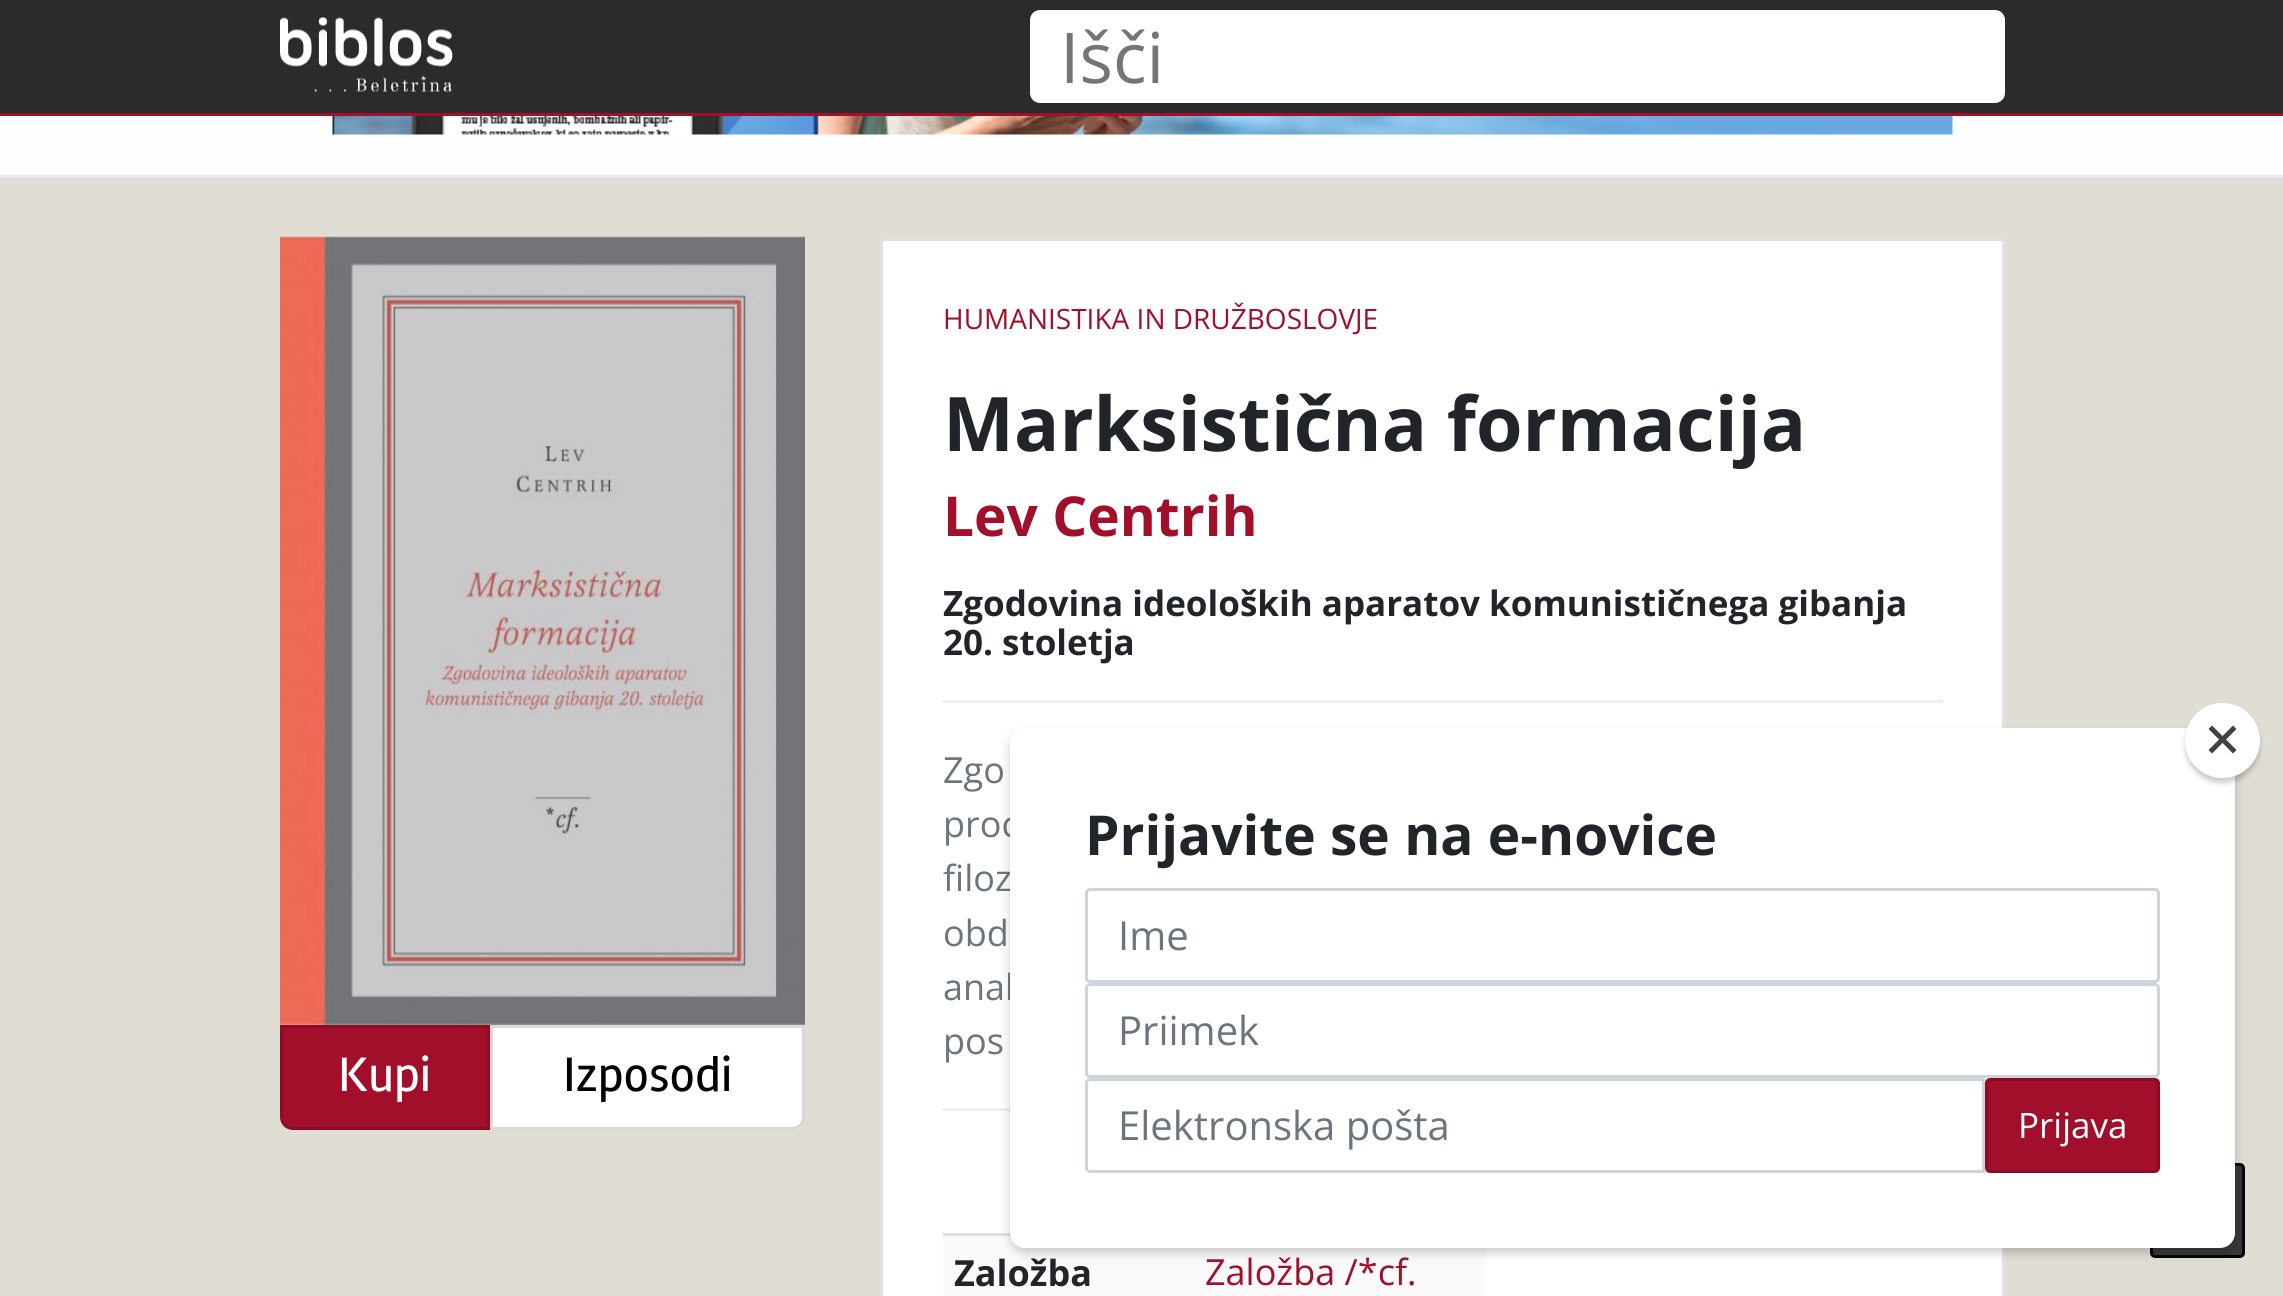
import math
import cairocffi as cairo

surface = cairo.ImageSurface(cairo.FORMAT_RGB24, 2283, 1296)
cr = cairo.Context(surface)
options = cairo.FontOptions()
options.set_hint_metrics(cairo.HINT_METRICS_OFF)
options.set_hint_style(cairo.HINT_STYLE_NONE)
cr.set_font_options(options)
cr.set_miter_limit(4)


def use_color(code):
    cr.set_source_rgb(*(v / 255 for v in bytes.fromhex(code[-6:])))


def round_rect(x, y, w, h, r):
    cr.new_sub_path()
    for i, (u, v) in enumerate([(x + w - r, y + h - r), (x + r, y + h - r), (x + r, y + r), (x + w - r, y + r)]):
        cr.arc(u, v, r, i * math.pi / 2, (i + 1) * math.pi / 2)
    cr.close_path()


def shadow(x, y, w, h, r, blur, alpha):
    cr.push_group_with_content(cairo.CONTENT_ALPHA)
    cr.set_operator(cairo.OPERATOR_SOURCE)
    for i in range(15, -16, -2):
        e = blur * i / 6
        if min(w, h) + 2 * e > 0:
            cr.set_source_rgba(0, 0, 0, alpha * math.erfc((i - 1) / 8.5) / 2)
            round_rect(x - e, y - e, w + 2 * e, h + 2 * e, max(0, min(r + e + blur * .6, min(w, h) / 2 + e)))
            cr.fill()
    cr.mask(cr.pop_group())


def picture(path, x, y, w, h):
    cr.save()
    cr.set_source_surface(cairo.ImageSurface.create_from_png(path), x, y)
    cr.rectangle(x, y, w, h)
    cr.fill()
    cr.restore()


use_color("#e0ddd5")
cr.paint()
use_color("#292b2c")
cr.rectangle(0, 0, 2283, 113)
cr.fill()
use_color("#a10f2b")
cr.rectangle(0, 113, 2283, 3)
cr.fill()
picture("img1.png", 280, 17, 173, 75)
use_color("#ffffff")
round_rect(1032.5, 12.5, 970, 88, 7.5)
cr.fill_preserve()
cr.set_line_width(5)
cr.stroke()
cr.select_font_face("Open Sans")
cr.set_font_size(70)
use_color("#757575")
cr.move_to(1060, 83)
cr.show_text("Išči")
use_color("#fefefe")
cr.rectangle(0, 116, 2283, 59)
cr.fill()
use_color("#e8e8ee")
cr.rectangle(0, 175, 2283, 3)
cr.fill()
picture("img2.png", 332, 116, 1621, 19)
picture("img3.png", 280, 236, 525, 789)
use_color("#a10f2b")
cr.new_path()
cr.move_to(281.5, 1026.5)
cr.line_to(488.5, 1026.5)
cr.line_to(488.5, 1128.5)
cr.line_to(293, 1128.5)
cr.curve_to(286.5, 1128.5, 281.5, 1123.5, 281.5, 1117)
cr.close_path()
cr.fill_preserve()
use_color("#8a0d25")
cr.set_line_width(3)
cr.stroke()
cr.select_font_face("Rambla")
cr.set_font_size(50)
use_color("#ffffff")
cr.move_to(338, 1091)
cr.show_text("Kupi")
cr.new_path()
cr.move_to(491.5, 1026.5)
cr.line_to(803.5, 1026.5)
cr.line_to(803.5, 1117)
cr.curve_to(803.5, 1123.5, 798.5, 1128.5, 792, 1128.5)
cr.line_to(491.5, 1128.5)
cr.close_path()
cr.fill_preserve()
use_color("#d9d9d9")
cr.stroke()
use_color("#000000")
cr.move_to(563, 1091)
cr.show_text("Izposodi")
use_color("#ffffff")
round_rect(880, 238, 1125, 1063, 5)
cr.fill()
round_rect(881.5, 239.5, 1122, 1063, 3.5)
cr.set_source_rgba(0, 0, 0, 0.12)
cr.stroke()
cr.select_font_face("Open Sans")
cr.set_font_size(28)
use_color("#a10f2b")
cr.move_to(943, 329)
cr.show_text("HUMANISTIKA IN DRUŽBOSLOVJE")
cr.select_font_face("Open Sans", cairo.FONT_SLANT_NORMAL, cairo.FONT_WEIGHT_BOLD)
cr.set_font_size(75.25)
use_color("#212529")
cr.move_to(943, 451)
cr.show_text("Marksistična formacija")
cr.set_font_size(55)
use_color("#a10f2b")
cr.move_to(943, 536)
cr.show_text("Lev Centrih")
cr.set_font_size(35)
use_color("#212529")
cr.move_to(943, 616)
cr.show_text("Zgodovina ideoloških aparatov komunističnega gibanja")
cr.move_to(943, 655)
cr.show_text("20. stoletja")
use_color("#eeeeee")
cr.rectangle(943, 700, 1000, 3)
cr.fill()
cr.select_font_face("Open Sans")
cr.set_font_size(36)
use_color("#6c757d")
cr.move_to(943, 783)
cr.show_text("Zgo")
cr.move_to(943, 837)
cr.show_text("proc")
cr.move_to(943, 891)
cr.show_text("filoz")
cr.move_to(943, 946)
cr.show_text("obd")
cr.move_to(943, 1000)
cr.show_text("anal")
cr.move_to(943, 1054)
cr.show_text("pos")
use_color("#eeeeee")
cr.rectangle(943, 1108, 67, 3)
cr.fill()
use_color("#fafafa")
cr.rectangle(943, 1236, 542, 60)
cr.fill()
use_color("#dee2e6")
cr.rectangle(943, 1233, 68, 3)
cr.fill()
cr.select_font_face("Open Sans", cairo.FONT_SLANT_NORMAL, cairo.FONT_WEIGHT_BOLD)
use_color("#212529")
cr.move_to(954, 1286)
cr.show_text("Založba")
cr.select_font_face("Open Sans")
use_color("#a10f2b")
cr.move_to(1205, 1285)
cr.show_text("Založba /*cf.")
use_color("#383838")
round_rect(2151.5, 1164.5, 92, 92, 3.5)
cr.fill_preserve()
use_color("#040404")
cr.stroke()
use_color("#000000")
shadow(1010, 733, 1225, 520, 15, 5, 0.2)
use_color("#ffffff")
round_rect(1010, 728, 1225, 520, 15)
cr.fill()
use_color("#000000")
shadow(2185, 708, 75, 75, 37.5, 2.5, 0.2)
use_color("#ffffff")
cr.arc(2222.5, 740.5, 37.5, 0, 2 * math.pi)
cr.fill()
use_color("#414141")
cr.new_path()
cr.move_to(2233, 725.5)
cr.line_to(2236.5, 729)
cr.line_to(2212, 753.5)
cr.line_to(2208.5, 750)
cr.close_path()
cr.fill()
cr.new_path()
cr.move_to(2208.5, 729)
cr.line_to(2212, 725.5)
cr.line_to(2236.5, 750)
cr.line_to(2233, 753.5)
cr.close_path()
cr.fill()
cr.select_font_face("Open Sans", cairo.FONT_SLANT_NORMAL, cairo.FONT_WEIGHT_BOLD)
cr.set_font_size(55)
use_color("#212529")
cr.move_to(1085, 855)
cr.show_text("Prijavite se na e-novice")
round_rect(1086.5, 889.5, 1072, 92, 3.5)
use_color("#ced4da")
cr.stroke()
cr.select_font_face("Open Sans")
cr.set_font_size(40)
use_color("#6c757d")
cr.move_to(1118, 950)
cr.show_text("Ime")
round_rect(1086.5, 984.5, 1072, 92, 3.5)
use_color("#ced4da")
cr.stroke()
use_color("#6c757d")
cr.move_to(1118, 1045)
cr.show_text("Priimek")
cr.new_path()
cr.move_to(1090, 1079.5)
cr.line_to(1983.5, 1079.5)
cr.line_to(1983.5, 1171.5)
cr.line_to(1090, 1171.5)
cr.curve_to(1088, 1171.5, 1086.5, 1170, 1086.5, 1168)
cr.line_to(1086.5, 1083)
cr.curve_to(1086.5, 1081, 1088, 1079.5, 1090, 1079.5)
cr.close_path()
use_color("#ced4da")
cr.stroke()
use_color("#6c757d")
cr.move_to(1118, 1140)
cr.show_text("Elektronska pošta")
use_color("#a10f2b")
round_rect(1986.5, 1079.5, 172, 92, 3.5)
cr.fill_preserve()
use_color("#8a0d25")
cr.stroke()
cr.set_font_size(35)
use_color("#ffffff")
cr.move_to(2018, 1138)
cr.show_text("Prijava")
surface.write_to_png("result.png")
